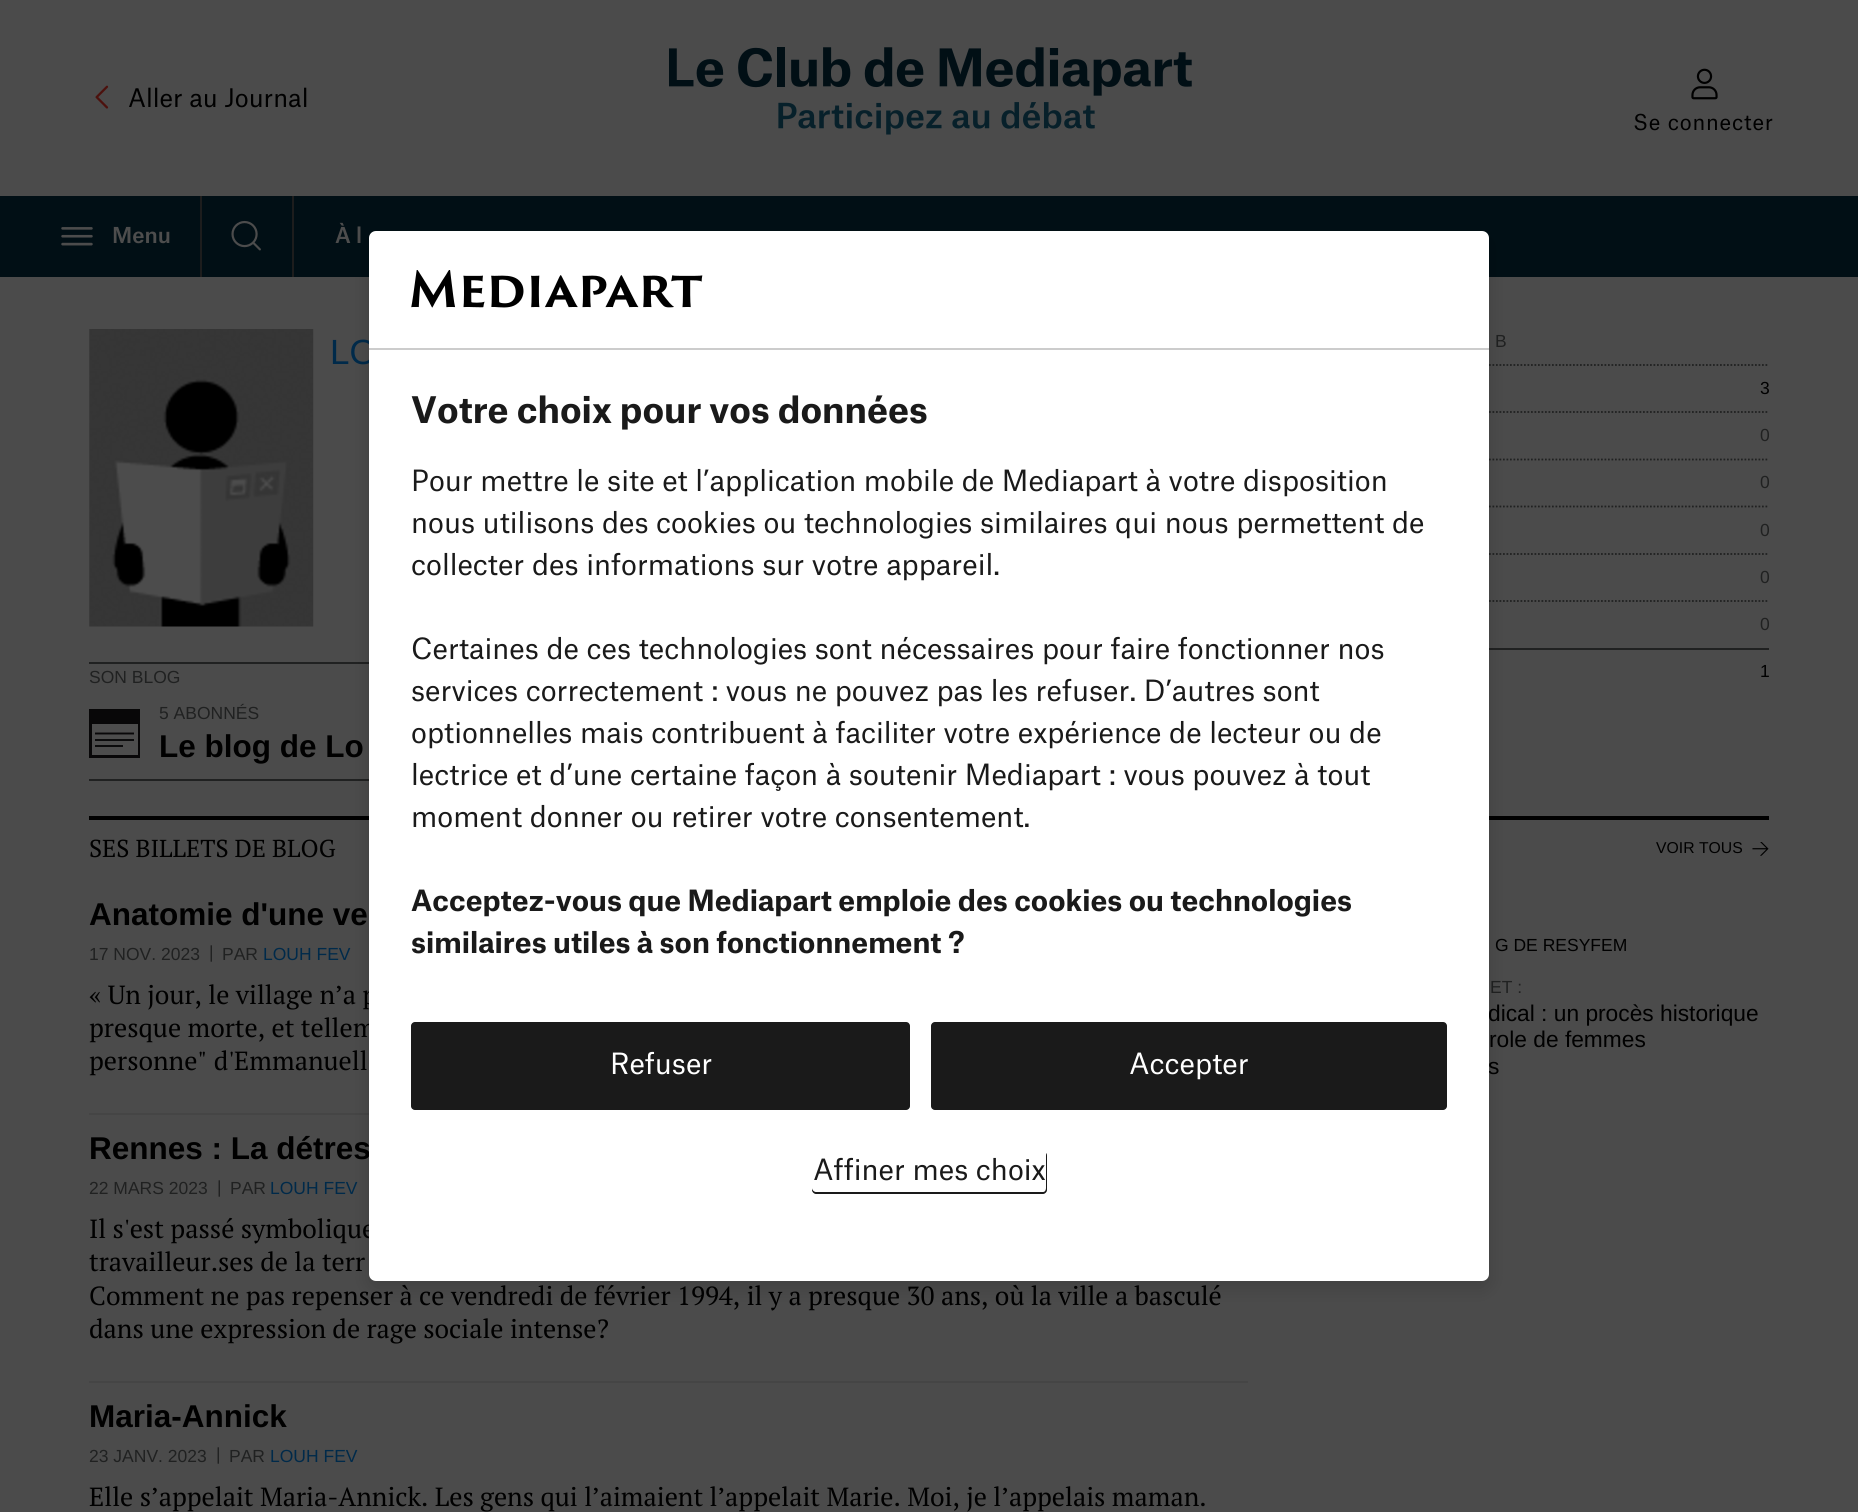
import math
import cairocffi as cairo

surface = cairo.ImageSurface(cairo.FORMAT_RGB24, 1858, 1512)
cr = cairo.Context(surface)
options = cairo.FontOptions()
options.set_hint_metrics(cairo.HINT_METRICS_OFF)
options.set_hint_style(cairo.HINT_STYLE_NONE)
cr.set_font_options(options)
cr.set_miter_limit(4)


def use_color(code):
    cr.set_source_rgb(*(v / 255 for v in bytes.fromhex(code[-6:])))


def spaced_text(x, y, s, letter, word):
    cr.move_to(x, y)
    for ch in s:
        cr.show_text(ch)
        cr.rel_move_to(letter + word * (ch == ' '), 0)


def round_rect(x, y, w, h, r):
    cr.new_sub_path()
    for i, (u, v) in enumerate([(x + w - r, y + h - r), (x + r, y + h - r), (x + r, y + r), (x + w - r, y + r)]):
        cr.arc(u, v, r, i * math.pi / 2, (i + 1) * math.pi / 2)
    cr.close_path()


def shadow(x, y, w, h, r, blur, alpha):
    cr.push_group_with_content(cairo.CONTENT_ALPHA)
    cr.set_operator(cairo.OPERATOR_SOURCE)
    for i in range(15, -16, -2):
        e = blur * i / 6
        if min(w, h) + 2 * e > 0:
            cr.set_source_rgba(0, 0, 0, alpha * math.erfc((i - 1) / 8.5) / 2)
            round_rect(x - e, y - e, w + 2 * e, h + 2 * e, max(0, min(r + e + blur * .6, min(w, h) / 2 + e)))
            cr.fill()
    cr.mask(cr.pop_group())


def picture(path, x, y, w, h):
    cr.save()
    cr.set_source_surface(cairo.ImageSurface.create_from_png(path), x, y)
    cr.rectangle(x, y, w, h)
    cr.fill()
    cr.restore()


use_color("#4b4b4b")
cr.paint()
picture("img1.png", 95, 85, 14, 24)
cr.select_font_face("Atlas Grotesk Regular")
cr.set_font_size(24.5)
use_color("#000000")
cr.move_to(128, 107)
cr.show_text("Aller au Journal")
picture("img2.png", 669, 47, 523, 88)
picture("img3.png", 1691, 68, 27, 32)
cr.set_font_size(21)
spaced_text(1633, 130, "Se connecter", 0.8, 0)
use_color("#010f15")
cr.rectangle(0, 196, 1858, 81)
cr.fill()
picture("img4.png", 61, 227, 32, 19)
cr.select_font_face("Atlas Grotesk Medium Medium")
use_color("#4d4d4d")
cr.move_to(112, 243)
cr.show_text("Menu")
use_color("#1d1d1d")
cr.rectangle(200, 196, 2, 81)
cr.fill()
picture("img5.png", 231, 220, 30, 31)
cr.rectangle(292, 196, 2, 81)
cr.fill()
use_color("#4d4d4d")
cr.move_to(335, 243)
cr.show_text("À l")
picture("img6.png", 89, 329, 225, 298)
cr.select_font_face("Liberation Sans")
cr.set_font_size(35)
use_color("#002a4a")
cr.move_to(330, 364)
cr.show_text("LO")
use_color("#202121")
cr.rectangle(89, 662, 280, 2)
cr.fill()
cr.rectangle(89, 779, 280, 2)
cr.fill()
cr.set_font_size(17.5)
cr.move_to(89, 683)
cr.show_text("SON BLOG")
use_color("#080708")
cr.rectangle(89, 709, 51, 49)
cr.fill()
use_color("#4d4d4d")
cr.rectangle(92, 724, 46, 31)
cr.fill()
cr.new_path()
cr.move_to(95, 733.5)
cr.line_to(134, 733.5)
use_color("#080708")
cr.set_line_width(1.9)
cr.stroke()
use_color("#0b0b0c")
cr.rectangle(95, 739, 39, 2)
cr.fill()
cr.rectangle(95, 745, 28, 2)
cr.fill()
use_color("#202121")
cr.move_to(159, 719)
cr.show_text("5 ABONNÉS")
cr.select_font_face("Liberation Sans", cairo.FONT_SLANT_NORMAL, cairo.FONT_WEIGHT_BOLD)
cr.set_font_size(31.5)
use_color("#000000")
cr.move_to(159, 757)
cr.show_text("Le blog de Lo")
cr.new_path()
cr.move_to(1265, 365)
cr.line_to(1769, 365)
use_color("#202121")
cr.set_line_width(1.8)
cr.set_dash([1.75, 1.75])
cr.stroke()
cr.select_font_face("Liberation Sans")
cr.set_font_size(17.5)
cr.move_to(1495, 347)
cr.show_text("B")
use_color("#000000")
cr.move_to(1760, 394)
cr.show_text("3")
cr.new_path()
cr.move_to(1265, 412)
cr.line_to(1769, 412)
use_color("#202121")
cr.stroke()
cr.move_to(1760, 441)
cr.show_text("0")
cr.new_path()
cr.move_to(1265, 459.5)
cr.line_to(1769, 459.5)
cr.stroke()
cr.move_to(1760, 488)
cr.show_text("0")
cr.new_path()
cr.move_to(1265, 506.5)
cr.line_to(1769, 506.5)
cr.stroke()
cr.move_to(1760, 536)
cr.show_text("0")
cr.new_path()
cr.move_to(1265, 554)
cr.line_to(1769, 554)
cr.stroke()
cr.move_to(1760, 583)
cr.show_text("0")
cr.new_path()
cr.move_to(1265, 601)
cr.line_to(1769, 601)
cr.stroke()
cr.move_to(1760, 630)
cr.show_text("0")
cr.rectangle(1489, 648, 280, 2)
cr.fill()
use_color("#000000")
cr.move_to(1760, 677)
cr.show_text("1")
cr.rectangle(89, 816, 280, 4)
cr.fill()
cr.select_font_face("PT Serif")
cr.set_font_size(24.5)
cr.move_to(89, 857)
cr.show_text("SES BILLETS DE BLOG")
cr.select_font_face("Liberation Sans", cairo.FONT_SLANT_NORMAL, cairo.FONT_WEIGHT_BOLD)
cr.set_font_size(31.5)
cr.move_to(89, 925)
cr.show_text("Anatomie d'une ve")
cr.select_font_face("Liberation Sans")
cr.set_font_size(17.5)
use_color("#202121")
cr.move_to(89, 960)
cr.show_text("17 NOV. 2023")
cr.move_to(209, 958)
cr.show_text("|")
cr.move_to(222, 960)
cr.show_text("PAR")
use_color("#002a4a")
cr.move_to(263, 960)
cr.show_text("LOUH FEV")
cr.select_font_face("PT Serif")
cr.set_font_size(26.25)
use_color("#000000")
cr.move_to(89, 1004)
cr.show_text("« Un jour, le village n’a p")
cr.move_to(89, 1037)
cr.show_text("presque morte, et tellem")
cr.move_to(89, 1070)
cr.show_text("personne\" d'Emmanuell")
use_color("#454545")
cr.rectangle(89, 1113, 280, 2)
cr.fill()
cr.select_font_face("Liberation Sans", cairo.FONT_SLANT_NORMAL, cairo.FONT_WEIGHT_BOLD)
cr.set_font_size(31.5)
use_color("#000000")
cr.move_to(89, 1159)
cr.show_text("Rennes : La détres")
cr.select_font_face("Liberation Sans")
cr.set_font_size(17.5)
use_color("#202121")
cr.move_to(89, 1194)
cr.show_text("22 MARS 2023")
cr.move_to(217, 1193)
cr.show_text("|")
cr.move_to(230, 1194)
cr.show_text("PAR")
use_color("#002a4a")
cr.move_to(270, 1194)
cr.show_text("LOUH FEV")
cr.select_font_face("PT Serif")
cr.set_font_size(26.25)
use_color("#000000")
cr.move_to(89, 1238)
cr.show_text("Il s'est passé symbolique")
cr.move_to(89, 1271)
cr.show_text("travailleur.ses de la terr")
cr.move_to(89, 1305)
cr.show_text("Comment ne pas repenser à ce vendredi de février 1994, il y a presque 30 ans, où la ville a basculé")
cr.move_to(89, 1338)
cr.show_text("dans une expression de rage sociale intense?")
use_color("#454545")
cr.rectangle(89, 1381, 1159, 2)
cr.fill()
cr.select_font_face("Liberation Sans", cairo.FONT_SLANT_NORMAL, cairo.FONT_WEIGHT_BOLD)
cr.set_font_size(31.5)
use_color("#000000")
cr.move_to(89, 1427)
cr.show_text("Maria-Annick")
cr.select_font_face("Liberation Sans")
cr.set_font_size(17.5)
use_color("#202121")
cr.move_to(89, 1462)
cr.show_text("23 JANV. 2023")
cr.move_to(216, 1460)
cr.show_text("|")
cr.move_to(229, 1462)
cr.show_text("PAR")
use_color("#002a4a")
cr.move_to(270, 1462)
cr.show_text("LOUH FEV")
cr.select_font_face("PT Serif")
cr.set_font_size(26.25)
use_color("#000000")
cr.move_to(89, 1506)
cr.show_text("Elle s’appelait Maria-Annick. Les gens qui l’aimaient l’appelait Marie. Moi, je l’appelais maman.")
cr.rectangle(1489, 816, 280, 4)
cr.fill()
picture("img7.png", 1752, 842, 17, 14)
cr.select_font_face("Liberation Sans")
cr.set_font_size(15.75)
cr.move_to(1656, 853)
cr.show_text("VOIR TOUS")
cr.set_font_size(17.5)
cr.move_to(1495, 951)
cr.show_text("G DE RESYFEM")
use_color("#202121")
cr.move_to(1490, 993)
cr.show_text("ET :")
cr.set_font_size(22.75)
use_color("#000000")
cr.move_to(1488, 1021)
cr.show_text("dical : un procès historique")
cr.move_to(1489, 1047)
cr.show_text("role de femmes")
cr.move_to(1488, 1074)
cr.show_text("s")
use_color("#000000")
shadow(369, 238, 1120, 1050, 7, 9, 0.15)
use_color("#ffffff")
round_rect(369, 231, 1120, 1050, 7)
cr.fill()
use_color("#cccccc")
cr.rectangle(369, 348, 1120, 2)
cr.fill()
picture("img8.png", 411, 270, 292, 38)
cr.select_font_face("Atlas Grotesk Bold", cairo.FONT_SLANT_NORMAL, cairo.FONT_WEIGHT_BOLD)
cr.set_font_size(35)
use_color("#1a1a1a")
cr.move_to(411, 423)
cr.show_text("Votre choix pour vos données")
cr.select_font_face("Atlas Grotesk Regular")
cr.set_font_size(28)
cr.move_to(411, 491)
cr.show_text("Pour mettre le site et l’application mobile de Mediapart à votre disposition")
cr.move_to(411, 533)
cr.show_text("nous utilisons des cookies ou technologies similaires qui nous permettent de")
cr.move_to(411, 575)
cr.show_text("collecter des informations sur votre appareil.")
cr.move_to(411, 659)
cr.show_text("Certaines de ces technologies sont nécessaires pour faire fonctionner nos")
cr.move_to(411, 701)
cr.show_text("services correctement : vous ne pouvez pas les refuser. D’autres sont")
cr.move_to(411, 743)
cr.show_text("optionnelles mais contribuent à faciliter votre expérience de lecteur ou de")
cr.move_to(411, 785)
cr.show_text("lectrice et d’une certaine façon à soutenir Mediapart : vous pouvez à tout")
cr.move_to(411, 827)
cr.show_text("moment donner ou retirer votre consentement.")
cr.select_font_face("Atlas Grotesk Bold", cairo.FONT_SLANT_NORMAL, cairo.FONT_WEIGHT_BOLD)
cr.move_to(411, 911)
cr.show_text("Acceptez-vous que Mediapart emploie des cookies ou technologies")
cr.move_to(411, 953)
cr.show_text("similaires utiles à son fonctionnement ?")
round_rect(411, 1022, 499, 88, 4)
cr.fill()
cr.select_font_face("Atlas Grotesk Regular")
use_color("#ffffff")
cr.move_to(610, 1074)
cr.show_text("Refuser")
use_color("#1a1a1a")
round_rect(931, 1022, 516, 88, 4)
cr.fill()
use_color("#ffffff")
cr.move_to(1129, 1074)
cr.show_text("Accepter")
use_color("#1a1a1a")
cr.new_path()
cr.move_to(812, 1188)
cr.curve_to(812, 1190, 814, 1192, 816, 1192)
cr.line_to(1043, 1192)
cr.curve_to(1045, 1192, 1046, 1190, 1046, 1188)
cr.line_to(1046, 1153)
cr.curve_to(1047, 1154, 1047, 1155, 1047, 1156)
cr.line_to(1047, 1190)
cr.curve_to(1047, 1192, 1045, 1194, 1043, 1194)
cr.line_to(816, 1194)
cr.curve_to(814, 1194, 812, 1192, 812, 1190)
cr.close_path()
cr.fill()
cr.move_to(813, 1180)
cr.show_text("Affiner mes choix")
surface.write_to_png("result.png")
